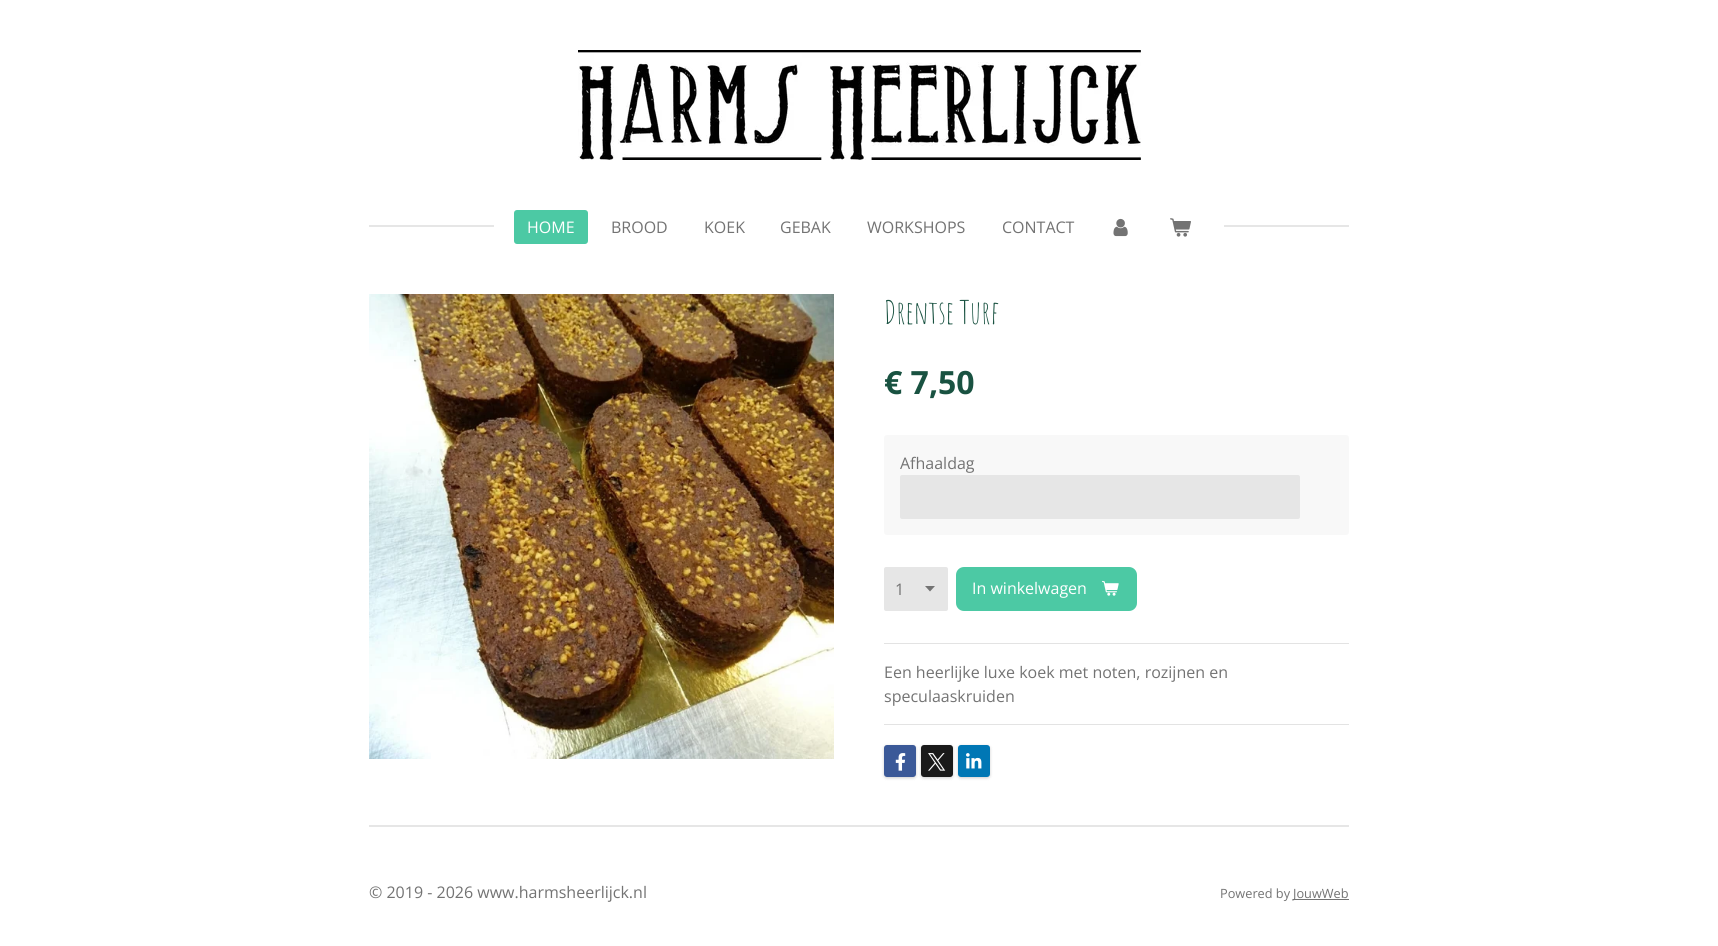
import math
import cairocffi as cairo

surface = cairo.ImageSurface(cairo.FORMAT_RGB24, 1718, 946)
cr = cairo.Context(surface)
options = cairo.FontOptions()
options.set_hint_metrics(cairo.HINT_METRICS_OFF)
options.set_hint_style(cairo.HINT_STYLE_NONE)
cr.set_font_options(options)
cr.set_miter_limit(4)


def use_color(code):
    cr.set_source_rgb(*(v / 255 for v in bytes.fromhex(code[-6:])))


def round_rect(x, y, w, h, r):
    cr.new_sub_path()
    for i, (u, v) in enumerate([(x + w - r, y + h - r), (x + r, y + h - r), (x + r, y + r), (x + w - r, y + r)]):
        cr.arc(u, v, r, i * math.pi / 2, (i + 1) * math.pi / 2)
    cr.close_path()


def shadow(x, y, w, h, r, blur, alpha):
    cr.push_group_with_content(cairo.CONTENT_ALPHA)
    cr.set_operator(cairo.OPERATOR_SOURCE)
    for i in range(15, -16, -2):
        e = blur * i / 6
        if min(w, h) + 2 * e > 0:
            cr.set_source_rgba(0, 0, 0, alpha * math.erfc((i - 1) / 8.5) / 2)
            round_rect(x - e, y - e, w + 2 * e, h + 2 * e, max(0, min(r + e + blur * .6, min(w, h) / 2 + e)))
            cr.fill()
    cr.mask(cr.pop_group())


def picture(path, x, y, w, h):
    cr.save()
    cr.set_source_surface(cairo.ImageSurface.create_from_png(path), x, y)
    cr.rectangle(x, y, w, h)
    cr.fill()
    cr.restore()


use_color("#ffffff")
cr.paint()
picture("img1.png", 578, 50, 563, 110)
use_color("#e6e6e6")
cr.rectangle(369, 225, 125, 2)
cr.fill()
use_color("#4cc9a4")
round_rect(514, 210, 74, 34, 3)
cr.fill()
cr.select_font_face("Open Sans")
cr.set_font_size(16)
use_color("#ffffff")
cr.move_to(527, 233)
cr.show_text("HOME")
use_color("#737373")
cr.move_to(611, 233)
cr.show_text("BROOD")
cr.move_to(704, 233)
cr.show_text("KOEK")
cr.move_to(780, 233)
cr.show_text("GEBAK")
cr.move_to(867, 233)
cr.show_text("WORKSHOPS")
cr.move_to(1002, 233)
cr.show_text("CONTACT")
picture("img2.png", 1113, 218, 15, 19)
picture("img3.png", 1170, 218, 21, 19)
use_color("#e6e6e6")
cr.rectangle(1224, 225, 125, 2)
cr.fill()
picture("img4.png", 369, 294, 465, 465)
cr.select_font_face("Amatic SC")
cr.set_font_size(32)
use_color("#195241")
cr.move_to(884, 324)
cr.show_text("Drentse Turf")
cr.select_font_face("Open Sans", cairo.FONT_SLANT_NORMAL, cairo.FONT_WEIGHT_BOLD)
cr.move_to(884, 394)
cr.show_text("€ 7,50")
use_color("#f8f8f8")
round_rect(884, 435, 465, 100, 3)
cr.fill()
cr.select_font_face("Open Sans")
cr.set_font_size(16)
use_color("#737373")
cr.move_to(900, 469)
cr.show_text("Afhaaldag")
use_color("#e6e6e6")
round_rect(900, 475, 400, 44, 2)
cr.fill()
round_rect(884, 567, 64, 44, 2)
cr.fill()
use_color("#737373")
cr.new_path()
cr.move_to(930, 591.5)
cr.line_to(925, 586)
cr.line_to(935, 586)
cr.close_path()
cr.fill()
cr.move_to(895, 595)
cr.show_text("1")
use_color("#4cc9a4")
round_rect(956, 567, 181, 44, 8)
cr.fill()
use_color("#ffffff")
cr.move_to(972, 594)
cr.show_text("In winkelwagen")
picture("img5.png", 1102, 580, 17, 16)
use_color("#e3e3e3")
cr.rectangle(884, 643, 465, 1)
cr.fill()
use_color("#737373")
cr.move_to(884, 678)
cr.show_text("Een heerlijke luxe koek met noten, rozijnen en")
cr.move_to(884, 702)
cr.show_text("speculaaskruiden")
use_color("#e3e3e3")
cr.rectangle(884, 724, 465, 1)
cr.fill()
use_color("#000000")
shadow(884, 746, 32, 32, 3, 1.5, 0.2)
use_color("#3b5998")
round_rect(884, 745, 32, 32, 3)
cr.fill()
picture("img6.png", 895, 753, 11, 18)
use_color("#000000")
shadow(921, 746, 32, 32, 3, 1.5, 0.2)
use_color("#1a1a1a")
round_rect(921, 745, 32, 32, 3)
cr.fill()
picture("img7.png", 928, 753, 18, 18)
use_color("#000000")
shadow(958, 746, 32, 32, 3, 1.5, 0.2)
use_color("#0077b5")
round_rect(958, 745, 32, 32, 3)
cr.fill()
picture("img8.png", 966, 753, 16, 16)
use_color("#e6e6e6")
cr.rectangle(369, 825, 980, 2)
cr.fill()
use_color("#737373")
cr.move_to(369, 898)
cr.show_text("© 2019 - 2026 www.harmsheerlijck.nl")
cr.set_font_size(12.75)
cr.move_to(1220, 898)
cr.show_text("Powered by")
cr.rectangle(1293, 899, 56, 1)
cr.fill()
cr.move_to(1293, 898)
cr.show_text("JouwWeb")
surface.write_to_png("result.png")
